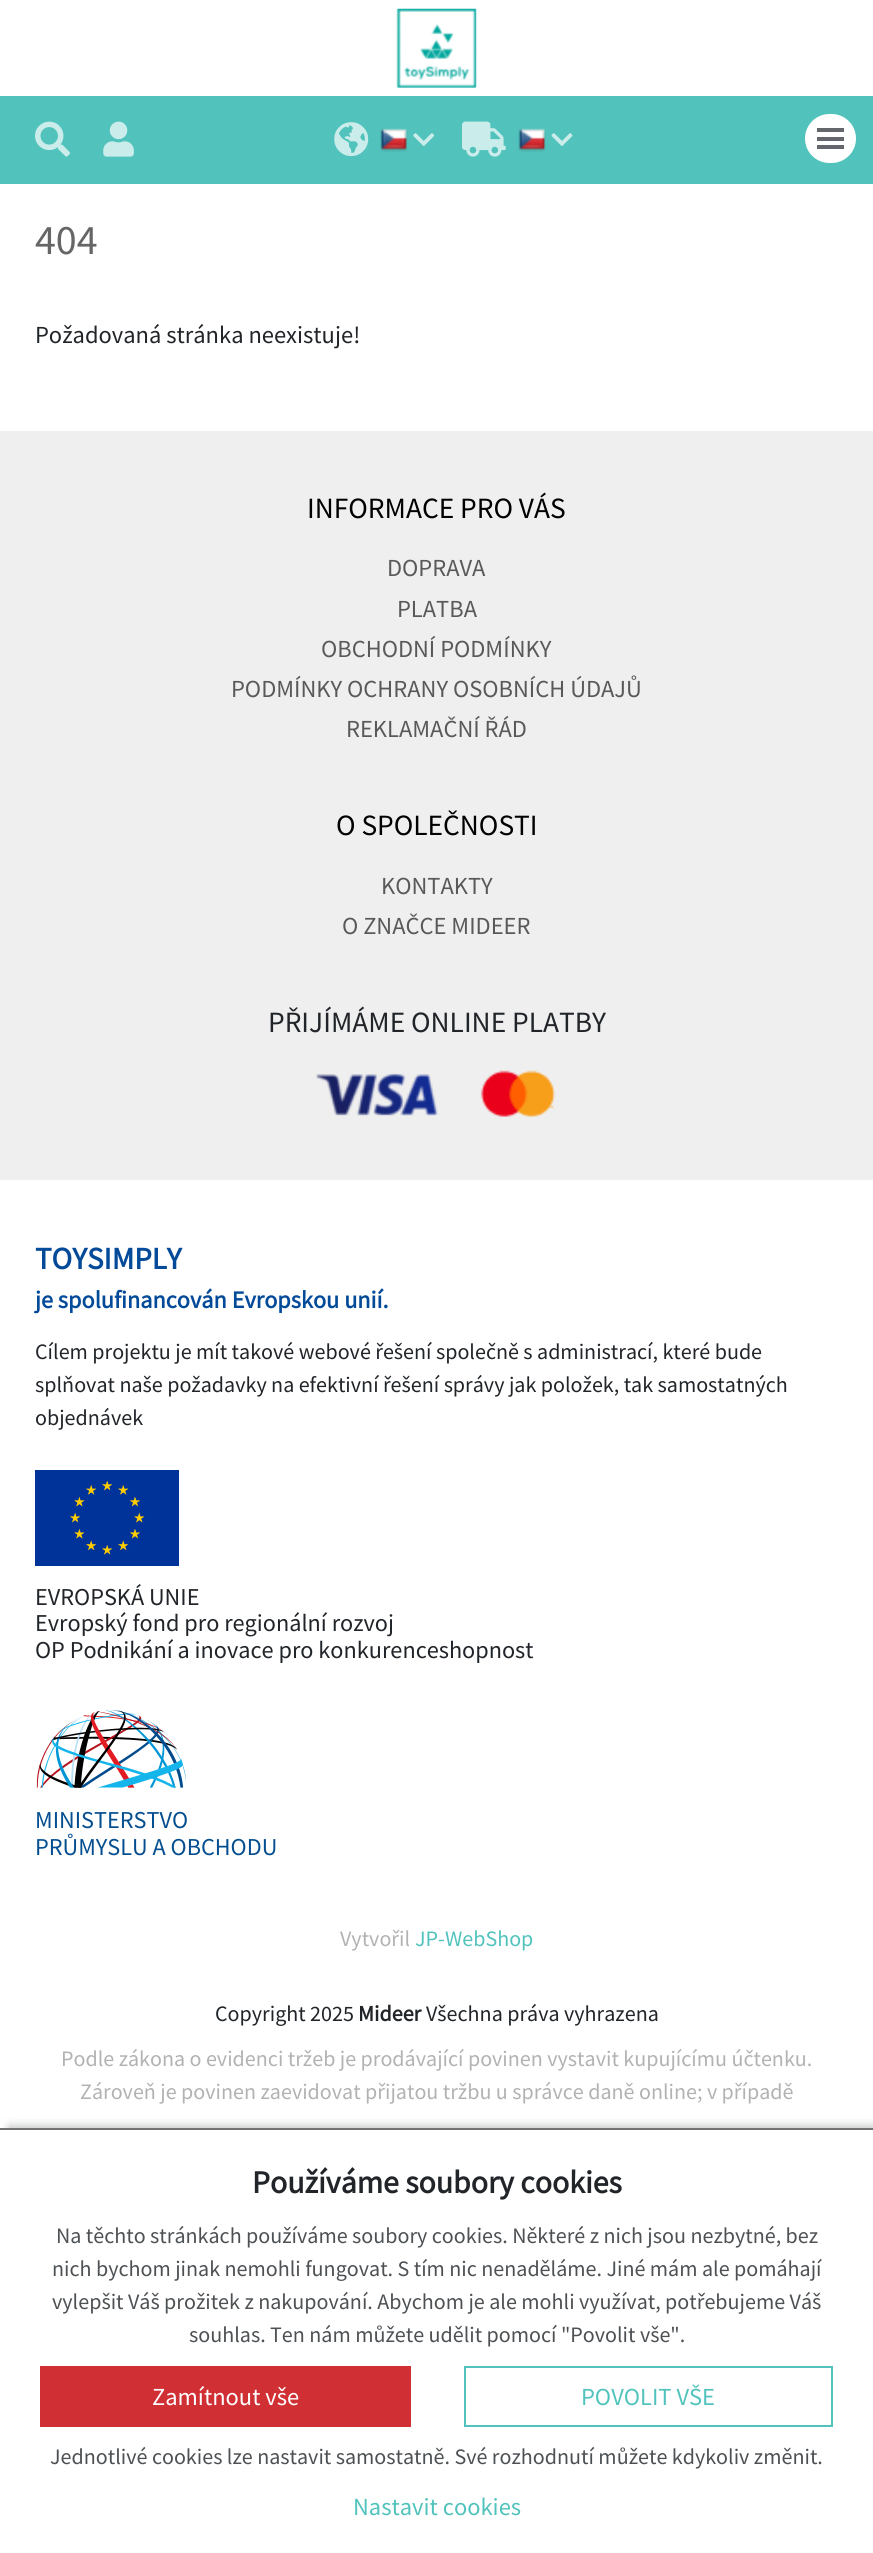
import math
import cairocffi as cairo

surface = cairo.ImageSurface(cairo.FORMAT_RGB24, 873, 2553)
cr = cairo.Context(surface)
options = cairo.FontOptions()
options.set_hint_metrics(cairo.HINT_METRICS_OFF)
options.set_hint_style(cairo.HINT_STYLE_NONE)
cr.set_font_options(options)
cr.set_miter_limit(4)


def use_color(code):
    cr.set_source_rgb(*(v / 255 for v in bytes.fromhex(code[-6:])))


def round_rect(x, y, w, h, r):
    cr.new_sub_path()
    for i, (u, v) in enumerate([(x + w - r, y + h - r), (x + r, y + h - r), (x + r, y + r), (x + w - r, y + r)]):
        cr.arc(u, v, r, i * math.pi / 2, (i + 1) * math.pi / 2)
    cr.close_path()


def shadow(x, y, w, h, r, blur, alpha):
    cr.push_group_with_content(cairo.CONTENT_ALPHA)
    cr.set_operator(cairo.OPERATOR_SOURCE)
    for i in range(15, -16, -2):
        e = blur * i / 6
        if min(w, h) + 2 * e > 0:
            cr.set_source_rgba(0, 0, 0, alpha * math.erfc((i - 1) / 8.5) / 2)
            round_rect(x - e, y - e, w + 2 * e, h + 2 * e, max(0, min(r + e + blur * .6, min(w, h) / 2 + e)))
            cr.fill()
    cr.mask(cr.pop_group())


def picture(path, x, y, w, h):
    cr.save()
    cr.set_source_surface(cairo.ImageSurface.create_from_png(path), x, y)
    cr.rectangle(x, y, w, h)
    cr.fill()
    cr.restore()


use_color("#ffffff")
cr.paint()
picture("img1.png", 396, 8, 81, 80)
use_color("#51c3bc")
cr.rectangle(0, 96, 873, 88)
cr.fill()
picture("img2.png", 35, 121, 35, 36)
picture("img3.png", 103, 121, 31, 36)
picture("img4.png", 334, 122, 35, 35)
picture("img5.png", 380, 128, 28, 24)
picture("img6.png", 413, 133, 22, 13)
picture("img7.png", 462, 121, 44, 36)
picture("img8.png", 518, 128, 28, 24)
picture("img9.png", 551, 133, 22, 13)
use_color("#ffffff")
round_rect(805, 114, 51, 49, 24.5)
cr.fill()
use_color("#63666a")
cr.rectangle(817, 128, 27, 4)
cr.fill()
cr.rectangle(817, 137, 27, 4)
cr.fill()
cr.rectangle(817, 145, 27, 4)
cr.fill()
cr.select_font_face("Source Sans Pro")
cr.set_font_size(42)
use_color("#666666")
cr.move_to(35, 254)
cr.show_text("404")
cr.set_font_size(24.5)
use_color("#212529")
cr.move_to(35, 343)
cr.show_text("Požadovaná stránka neexistuje!")
use_color("#efefef")
cr.rectangle(0, 431, 873, 749)
cr.fill()
cr.set_font_size(29.4)
use_color("#000000")
cr.move_to(307, 518)
cr.show_text("INFORMACE PRO VÁS")
cr.set_font_size(24.5)
use_color("#595959")
cr.move_to(387, 576)
cr.show_text("DOPRAVA")
cr.move_to(397, 617)
cr.show_text("PLATBA")
cr.move_to(321, 657)
cr.show_text("OBCHODNÍ PODMÍNKY")
cr.move_to(231, 697)
cr.show_text("PODMÍNKY OCHRANY OSOBNÍCH ÚDAJŮ")
cr.move_to(346, 737)
cr.show_text("REKLAMAČNÍ ŘÁD")
cr.set_font_size(29.4)
use_color("#000000")
cr.move_to(336, 835)
cr.show_text("O SPOLEČNOSTI")
cr.set_font_size(24.5)
use_color("#595959")
cr.move_to(381, 894)
cr.show_text("KONTAKTY")
cr.move_to(342, 934)
cr.show_text("O ZNAČCE MIDEER")
cr.set_font_size(29.4)
use_color("#212529")
cr.move_to(268, 1032)
cr.show_text("PŘIJÍMÁME ONLINE PLATBY")
picture("img10.png", 316, 1070, 240, 47)
cr.select_font_face("Source Sans Pro", cairo.FONT_SLANT_NORMAL, cairo.FONT_WEIGHT_BOLD)
cr.set_font_size(31)
use_color("#034a99")
cr.move_to(35, 1269)
cr.show_text("TOYSIMPLY")
cr.set_font_size(24.25)
cr.move_to(35, 1308)
cr.show_text("je spolufinancován Evropskou unií.")
cr.select_font_face("Source Sans Pro")
cr.set_font_size(22.05)
use_color("#212529")
cr.move_to(35, 1359)
cr.show_text("Cílem projektu je mít takové webové řešení společně s administrací, které bude")
cr.move_to(35, 1392)
cr.show_text("splňovat naše požadavky na efektivní řešení správy jak položek, tak samostatných")
cr.move_to(35, 1425)
cr.show_text("objednávek")
picture("img11.png", 35, 1470, 144, 96)
cr.set_font_size(24.25)
cr.move_to(35, 1605)
cr.show_text("EVROPSKÁ UNIE")
cr.move_to(35, 1631)
cr.show_text("Evropský fond pro regionální rozvoj")
cr.move_to(35, 1658)
cr.show_text("OP Podnikání a inovace pro konkurenceshopnost")
picture("img12.png", 36, 1710, 150, 78)
use_color("#044e8f")
cr.move_to(35, 1828)
cr.show_text("MINISTERSTVO")
cr.move_to(35, 1855)
cr.show_text("PRŮMYSLU A OBCHODU")
cr.set_font_size(22.05)
use_color("#b2b2b2")
cr.move_to(340, 1946)
cr.show_text("Vytvořil")
use_color("#51c3bc")
cr.move_to(415, 1946)
cr.show_text("JP-WebShop")
use_color("#212529")
cr.move_to(215, 2021)
cr.show_text("Copyright 2025")
cr.select_font_face("Source Sans Pro", cairo.FONT_SLANT_NORMAL, cairo.FONT_WEIGHT_BOLD)
cr.move_to(358, 2021)
cr.show_text("Mideer")
cr.select_font_face("Source Sans Pro")
cr.move_to(426, 2021)
cr.show_text("Všechna práva vyhrazena")
use_color("#b2b2b2")
cr.move_to(61, 2066)
cr.show_text("Podle zákona o evidenci tržeb je prodávající povinen vystavit kupujícímu účtenku.")
cr.move_to(80, 2099)
cr.show_text("Zároveň je povinen zaevidovat přijatou tržbu u správce daně online; v případě")
use_color("#63666a")
shadow(9, 2126, 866, 419, 0, 4.5, 0.4)
use_color("#ffffff")
cr.rectangle(1, 2130, 872, 423)
cr.fill()
use_color("#727272")
cr.rectangle(0, 2128, 873, 2)
cr.fill()
cr.select_font_face("Source Sans Pro", cairo.FONT_SLANT_NORMAL, cairo.FONT_WEIGHT_BOLD)
cr.set_font_size(31.8)
use_color("#212529")
cr.move_to(252, 2193)
cr.show_text("Používáme soubory cookies")
cr.select_font_face("Source Sans Pro")
cr.set_font_size(22.05)
use_color("#4d5154")
cr.move_to(56, 2243)
cr.show_text("Na těchto stránkách používáme soubory cookies. Některé z nich jsou nezbytné, bez")
cr.move_to(52, 2276)
cr.show_text("nich bychom jinak nemohli fungovat. S tím nic nenaděláme. Jiné mám ale pomáhají")
cr.move_to(52, 2309)
cr.show_text("vylepšit Váš prožitek z nakupování. Abychom je ale mohli využívat, potřebujeme Váš")
cr.move_to(189, 2342)
cr.show_text("souhlas. Ten nám můžete udělit pomocí \"Povolit vše\".")
use_color("#d02f34")
cr.rectangle(40, 2366, 371, 61)
cr.fill()
cr.set_font_size(24.5)
use_color("#ffffff")
cr.move_to(152, 2405)
cr.show_text("Zamítnout vše")
cr.rectangle(465, 2367, 367, 59)
use_color("#51c3bc")
cr.stroke()
cr.move_to(581, 2405)
cr.show_text("POVOLIT VŠE")
cr.set_font_size(22.05)
use_color("#4d5154")
cr.move_to(50, 2464)
cr.show_text("Jednotlivé cookies lze nastavit samostatně. Své rozhodnutí můžete kdykoliv změnit.")
cr.set_font_size(24.5)
use_color("#51c3bc")
cr.move_to(353, 2515)
cr.show_text("Nastavit cookies")
surface.write_to_png("result.png")
